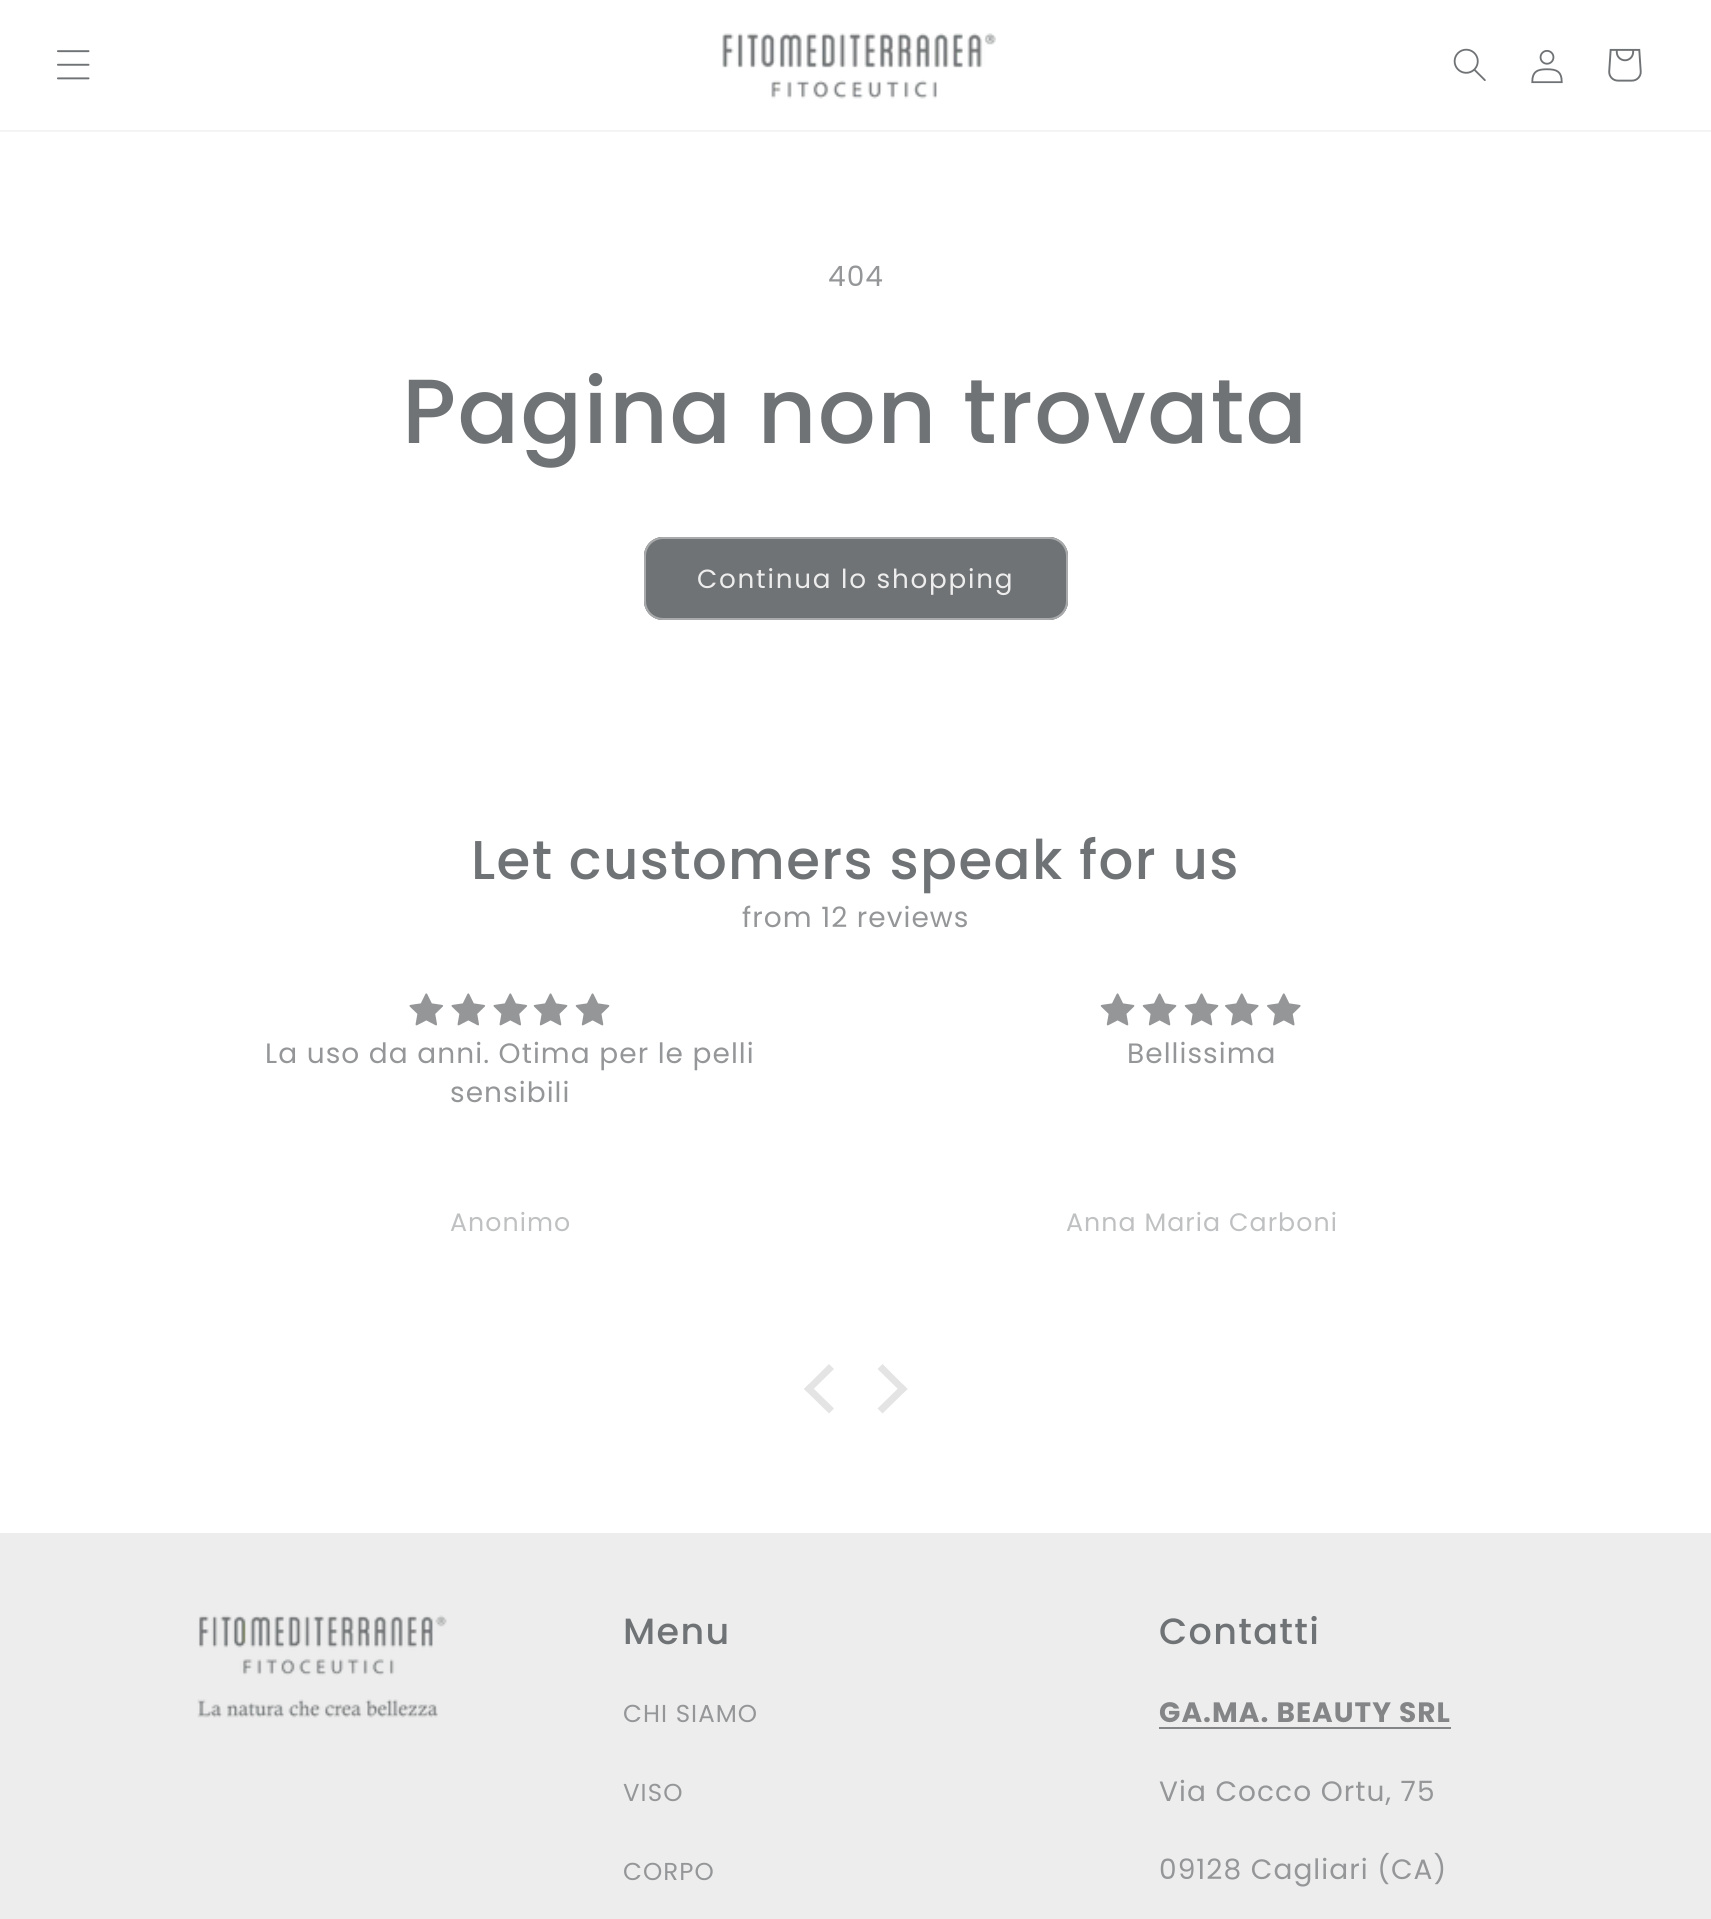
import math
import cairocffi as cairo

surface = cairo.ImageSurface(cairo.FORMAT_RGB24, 1711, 1919)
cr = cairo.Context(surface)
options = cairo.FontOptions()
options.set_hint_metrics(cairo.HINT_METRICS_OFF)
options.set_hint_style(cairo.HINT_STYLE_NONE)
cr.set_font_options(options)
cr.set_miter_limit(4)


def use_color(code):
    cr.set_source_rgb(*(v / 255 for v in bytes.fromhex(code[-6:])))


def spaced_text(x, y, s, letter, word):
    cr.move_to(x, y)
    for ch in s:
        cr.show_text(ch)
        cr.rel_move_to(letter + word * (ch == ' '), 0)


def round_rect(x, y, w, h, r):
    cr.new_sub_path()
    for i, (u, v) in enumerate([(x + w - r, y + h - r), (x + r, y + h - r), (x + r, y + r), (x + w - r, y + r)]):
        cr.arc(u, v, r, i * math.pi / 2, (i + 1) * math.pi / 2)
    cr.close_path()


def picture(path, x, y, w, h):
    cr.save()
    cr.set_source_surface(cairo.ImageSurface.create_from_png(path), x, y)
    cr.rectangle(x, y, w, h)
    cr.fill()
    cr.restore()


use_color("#ffffff")
cr.paint()
use_color("#f4f4f4")
cr.rectangle(0, 130, 1711, 2)
cr.fill()
picture("img1.png", 57, 50, 33, 30)
picture("img2.png", 722, 33, 274, 66)
picture("img3.png", 1453, 48, 33, 33)
picture("img4.png", 1531, 49, 32, 35)
picture("img5.png", 1608, 48, 34, 34)
cr.select_font_face("Poppins")
cr.set_font_size(28)
use_color("#949698")
spaced_text(828, 286, "404", 1.05, 0)
cr.select_font_face("Poppins Medium")
cr.set_font_size(91)
use_color("#707375")
spaced_text(402, 443, "Pagina non trovata", 1.35, 0)
round_rect(644, 537, 424, 83, 19)
cr.fill()
round_rect(645, 538, 422, 81, 18)
cr.stroke()
round_rect(645, 538, 422, 81, 18)
cr.set_source_rgba(0.929, 0.929, 0.929, 0.45)
cr.stroke()
cr.select_font_face("Poppins")
cr.set_font_size(26.25)
use_color("#ededed")
spaced_text(697, 588, "Continua lo shopping", 1.75, 0)
cr.select_font_face("Poppins Medium")
cr.set_font_size(54.6)
use_color("#707375")
spaced_text(471, 879, "Let customers speak for us", 1.35, 0)
cr.select_font_face("Poppins")
cr.set_font_size(28)
use_color("#949698")
spaced_text(742, 927, "from 12 reviews", 1.05, 0)
picture("img6.png", 409, 993, 35, 33)
picture("img6.png", 451, 993, 35, 33)
picture("img6.png", 493, 993, 35, 33)
picture("img7.png", 533, 993, 35, 33)
picture("img7.png", 575, 993, 35, 33)
spaced_text(265, 1063, "La uso da anni. Otima per le pelli", 1.05, 0)
spaced_text(450, 1102, "sensibili", 1.05, 0)
cr.set_font_size(25.25)
use_color("#bfc0c1")
spaced_text(450, 1231, "Anonimo", 1.05, 0)
picture("img7.png", 1100, 993, 35, 33)
picture("img7.png", 1142, 993, 35, 33)
picture("img7.png", 1184, 993, 35, 33)
picture("img8.png", 1225, 993, 34, 33)
picture("img8.png", 1267, 993, 34, 33)
cr.set_font_size(28)
use_color("#949698")
spaced_text(1127, 1063, "Bellissima", 1.05, 0)
cr.set_font_size(25.25)
use_color("#bfc0c1")
spaced_text(1066, 1231, "Anna Maria Carboni", 1.05, 0)
use_color("#e4e4e4")
cr.new_path()
cr.move_to(804, 1389)
cr.line_to(829, 1364)
cr.line_to(834, 1369)
cr.line_to(809, 1393.5)
cr.close_path()
cr.fill()
cr.new_path()
cr.move_to(804, 1389)
cr.line_to(809, 1384)
cr.line_to(834, 1408.5)
cr.line_to(829, 1413.5)
cr.close_path()
cr.fill()
cr.new_path()
cr.move_to(877.5, 1369)
cr.line_to(882.5, 1364)
cr.line_to(907.5, 1389)
cr.line_to(902.5, 1393.5)
cr.close_path()
cr.fill()
cr.new_path()
cr.move_to(877.5, 1408.5)
cr.line_to(902.5, 1384)
cr.line_to(907.5, 1389)
cr.line_to(882.5, 1413.5)
cr.close_path()
cr.fill()
use_color("#ededed")
cr.rectangle(0, 1533, 1711, 386)
cr.fill()
picture("img9.png", 197, 1615, 250, 103)
cr.select_font_face("Poppins Medium")
cr.set_font_size(36.5)
use_color("#707375")
spaced_text(623, 1644, "Menu", 1.35, 0)
cr.select_font_face("Poppins")
cr.set_font_size(24.5)
use_color("#949698")
spaced_text(623, 1722, "CHI SIAMO", 1.05, 0)
spaced_text(623, 1801, "VISO", 1.05, 0)
spaced_text(623, 1880, "CORPO", 1.05, 0)
cr.select_font_face("Poppins Medium")
cr.set_font_size(36.5)
use_color("#707375")
spaced_text(1159, 1644, "Contatti", 1.35, 0)
cr.select_font_face("Poppins", cairo.FONT_SLANT_NORMAL, cairo.FONT_WEIGHT_BOLD)
cr.set_font_size(28)
use_color("#838587")
spaced_text(1159, 1722, "GA.MA. BEAUTY SRL", 1.05, 0)
cr.rectangle(1159, 1727, 292, 2)
cr.fill()
cr.select_font_face("Poppins")
use_color("#949698")
spaced_text(1159, 1801, "Via Cocco Ortu, 75", 1.05, 0)
spaced_text(1159, 1879, "09128 Cagliari (CA)", 1.05, 0)
surface.write_to_png("result.png")
